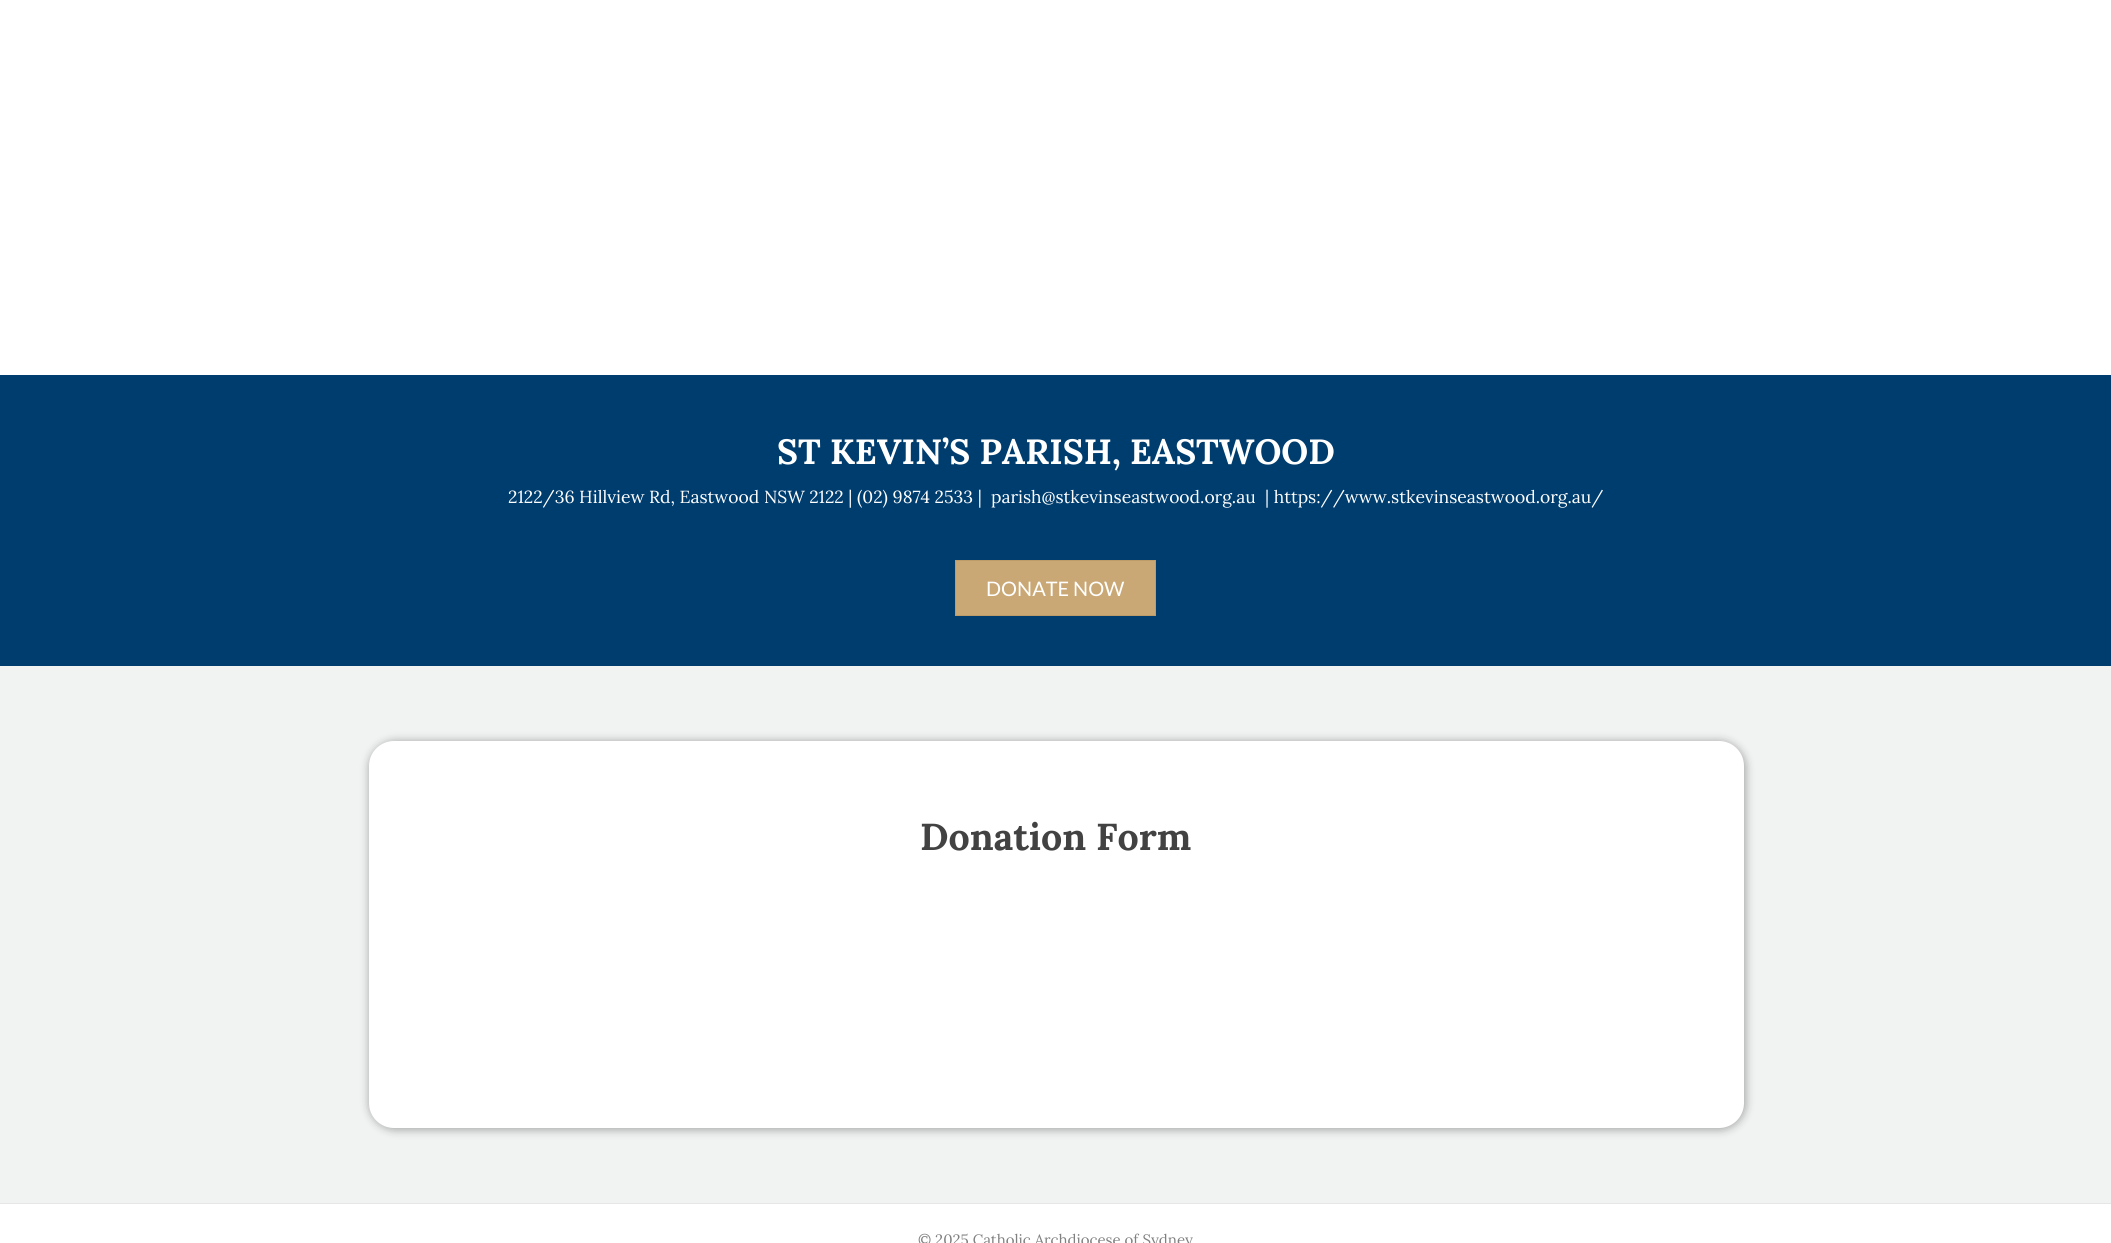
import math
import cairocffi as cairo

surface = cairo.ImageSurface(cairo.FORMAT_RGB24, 2111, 1243)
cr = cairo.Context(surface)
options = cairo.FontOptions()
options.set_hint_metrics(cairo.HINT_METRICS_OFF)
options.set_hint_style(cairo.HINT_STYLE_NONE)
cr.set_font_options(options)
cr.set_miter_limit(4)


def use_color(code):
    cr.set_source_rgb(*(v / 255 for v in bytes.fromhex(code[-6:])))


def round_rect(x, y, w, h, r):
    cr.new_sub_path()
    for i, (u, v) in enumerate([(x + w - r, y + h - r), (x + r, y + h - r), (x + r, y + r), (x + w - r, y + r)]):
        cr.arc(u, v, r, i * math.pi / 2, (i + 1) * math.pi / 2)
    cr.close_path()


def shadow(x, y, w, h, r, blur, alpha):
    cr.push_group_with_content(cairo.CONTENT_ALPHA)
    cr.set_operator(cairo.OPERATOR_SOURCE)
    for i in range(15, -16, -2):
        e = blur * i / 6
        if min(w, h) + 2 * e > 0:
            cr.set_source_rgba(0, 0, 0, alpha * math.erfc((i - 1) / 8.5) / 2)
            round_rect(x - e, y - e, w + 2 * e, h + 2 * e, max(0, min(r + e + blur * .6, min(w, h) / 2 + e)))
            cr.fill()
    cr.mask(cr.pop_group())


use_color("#ffffff")
cr.paint()
use_color("#003d6f")
cr.rectangle(0, 375, 2111, 291)
cr.fill()
cr.select_font_face("Lora", cairo.FONT_SLANT_NORMAL, cairo.FONT_WEIGHT_BOLD)
cr.set_font_size(35)
use_color("#ffffff")
cr.move_to(777, 464)
cr.show_text("ST KEVIN’S PARISH, EASTWOOD")
cr.select_font_face("Lora")
cr.set_font_size(17.5)
cr.move_to(508, 503)
cr.show_text("2122/36 Hillview Rd, Eastwood NSW 2122 | (02) 9874 2533 |")
cr.move_to(991, 503)
cr.show_text("parish@stkevinseastwood.org.au")
cr.move_to(1265, 503)
cr.show_text("| https://www.stkevinseastwood.org.au/")
use_color("#caa876")
cr.rectangle(955.5, 560.5, 200, 55)
cr.fill_preserve()
use_color("#be9c6a")
cr.set_line_width(1)
cr.stroke()
cr.select_font_face("Lato")
cr.set_font_size(20)
use_color("#ffffff")
cr.move_to(986, 596)
cr.show_text("DONATE NOW")
use_color("#f1f2f2")
cr.rectangle(0, 666, 2111, 537)
cr.fill()
use_color("#000000")
shadow(369, 741, 1377, 389, 26, 4.5, 0.31)
use_color("#ffffff")
round_rect(369, 741, 1375, 387, 25)
cr.fill()
cr.select_font_face("Lora", cairo.FONT_SLANT_NORMAL, cairo.FONT_WEIGHT_BOLD)
cr.set_font_size(37.5)
use_color("#424242")
cr.move_to(920, 850)
cr.show_text("Donation Form")
use_color("#e6e6e6")
cr.rectangle(0, 1203, 2111, 1)
cr.fill()
cr.select_font_face("Lora")
cr.set_font_size(15)
use_color("#808080")
cr.move_to(918, 1245)
cr.show_text("© 2025 Catholic Archdiocese of Sydney")
surface.write_to_png("result.png")
